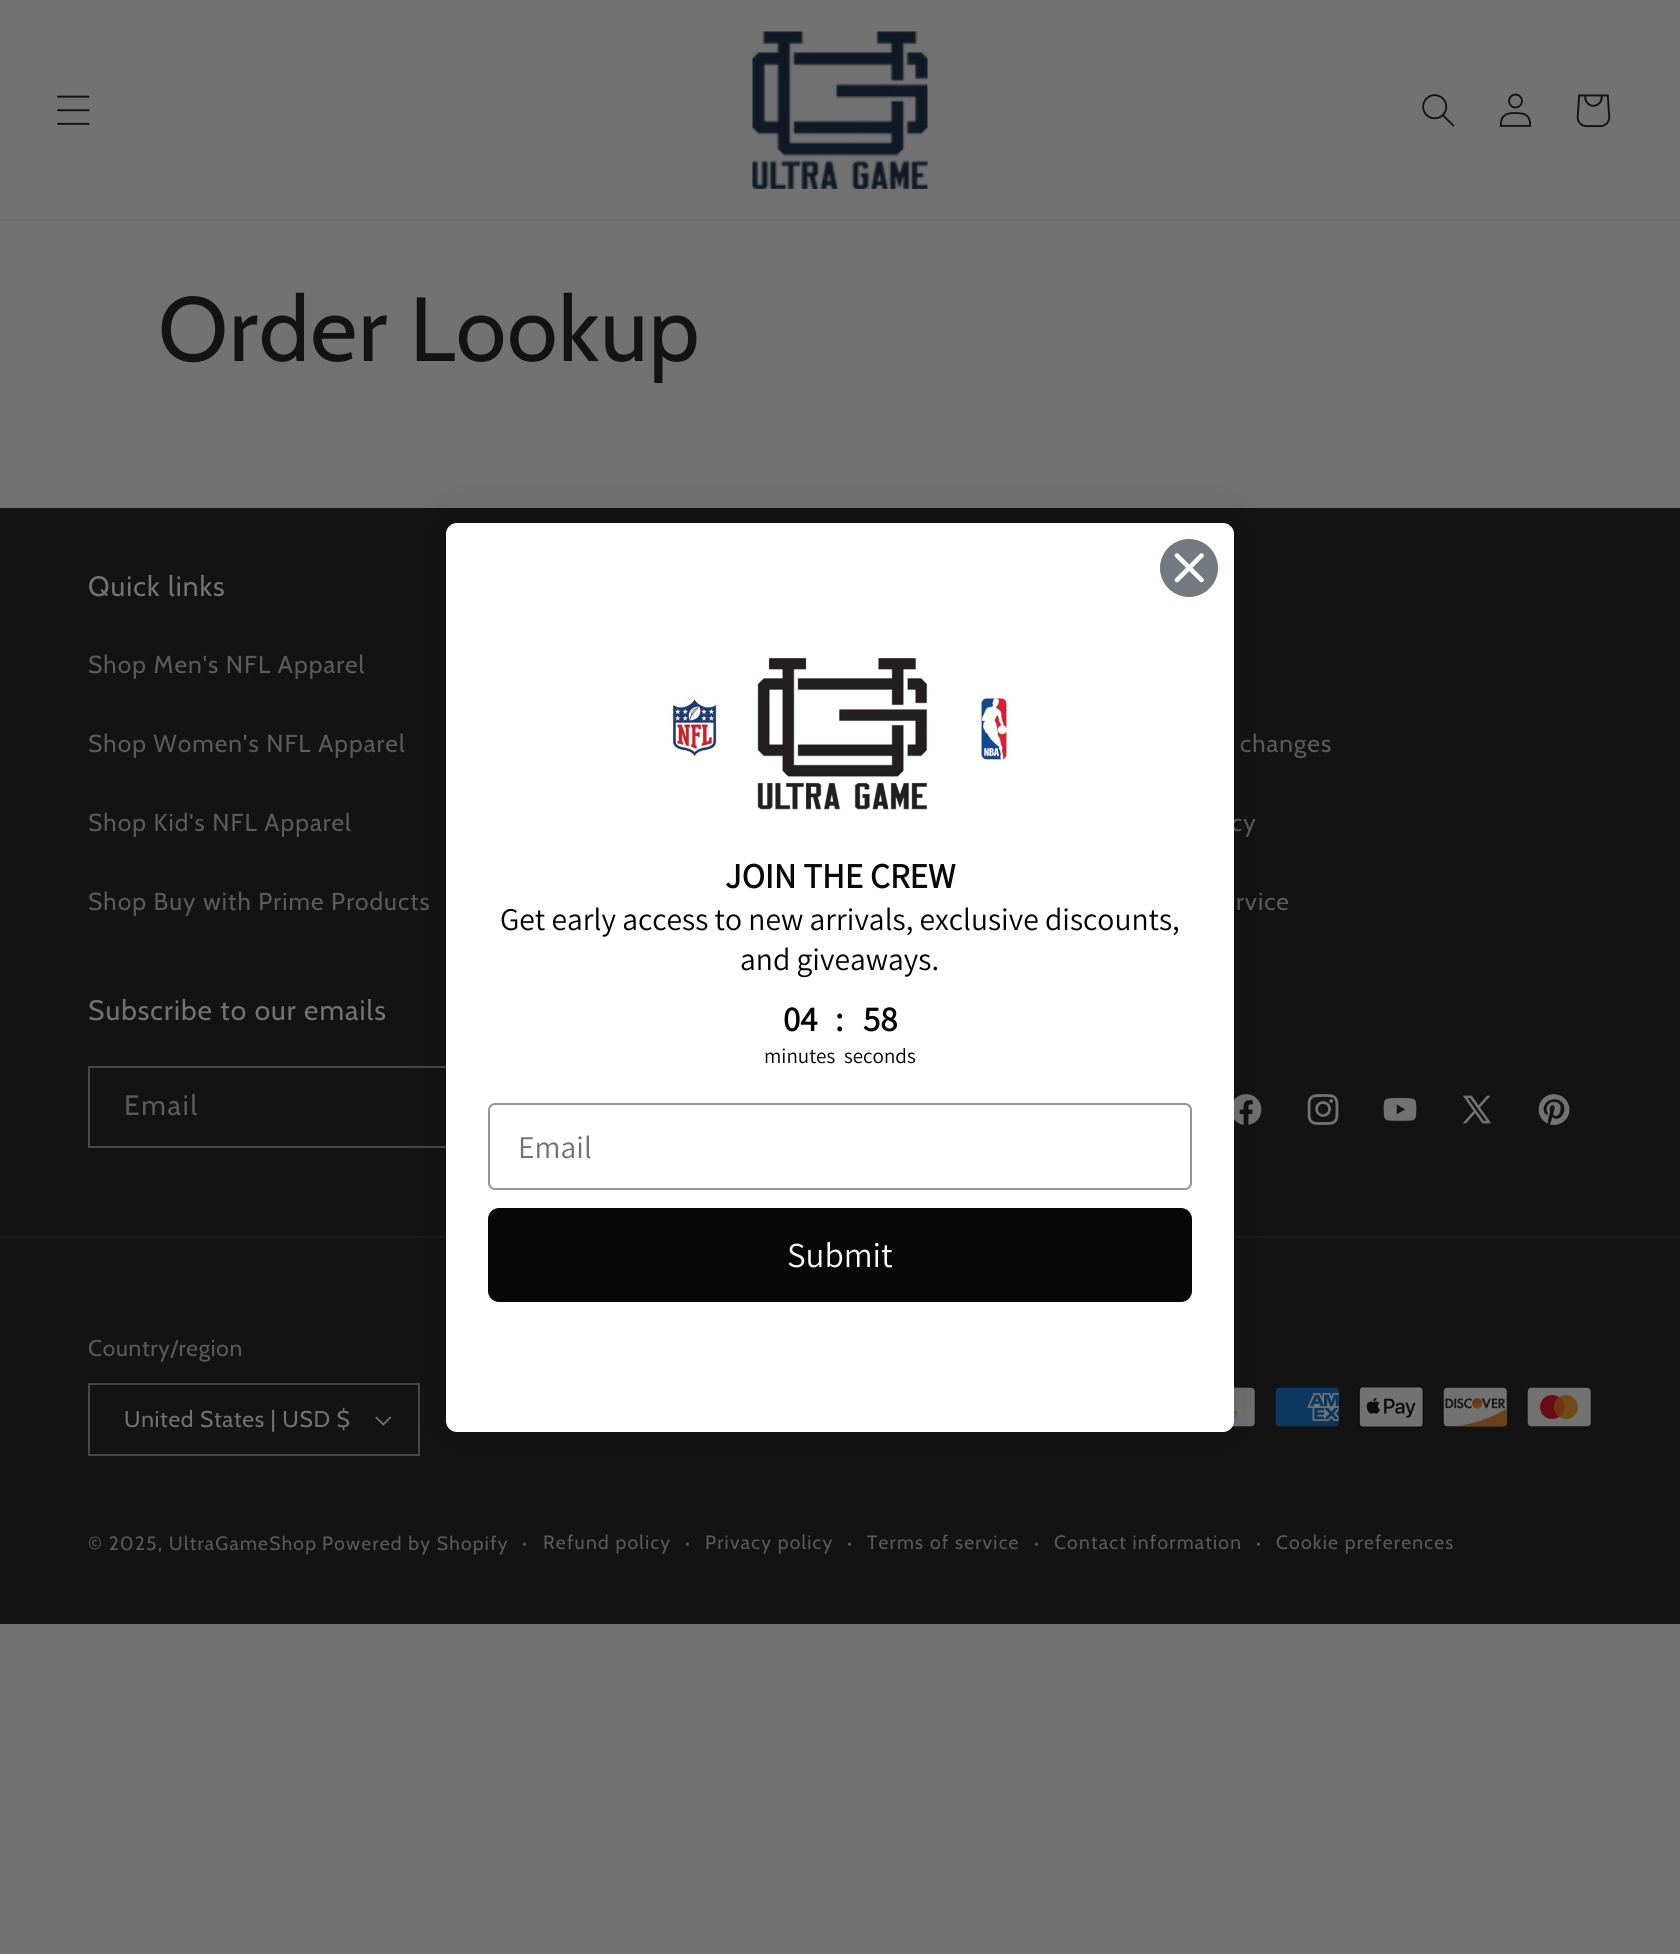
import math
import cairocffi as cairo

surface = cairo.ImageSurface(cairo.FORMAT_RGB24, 1680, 1954)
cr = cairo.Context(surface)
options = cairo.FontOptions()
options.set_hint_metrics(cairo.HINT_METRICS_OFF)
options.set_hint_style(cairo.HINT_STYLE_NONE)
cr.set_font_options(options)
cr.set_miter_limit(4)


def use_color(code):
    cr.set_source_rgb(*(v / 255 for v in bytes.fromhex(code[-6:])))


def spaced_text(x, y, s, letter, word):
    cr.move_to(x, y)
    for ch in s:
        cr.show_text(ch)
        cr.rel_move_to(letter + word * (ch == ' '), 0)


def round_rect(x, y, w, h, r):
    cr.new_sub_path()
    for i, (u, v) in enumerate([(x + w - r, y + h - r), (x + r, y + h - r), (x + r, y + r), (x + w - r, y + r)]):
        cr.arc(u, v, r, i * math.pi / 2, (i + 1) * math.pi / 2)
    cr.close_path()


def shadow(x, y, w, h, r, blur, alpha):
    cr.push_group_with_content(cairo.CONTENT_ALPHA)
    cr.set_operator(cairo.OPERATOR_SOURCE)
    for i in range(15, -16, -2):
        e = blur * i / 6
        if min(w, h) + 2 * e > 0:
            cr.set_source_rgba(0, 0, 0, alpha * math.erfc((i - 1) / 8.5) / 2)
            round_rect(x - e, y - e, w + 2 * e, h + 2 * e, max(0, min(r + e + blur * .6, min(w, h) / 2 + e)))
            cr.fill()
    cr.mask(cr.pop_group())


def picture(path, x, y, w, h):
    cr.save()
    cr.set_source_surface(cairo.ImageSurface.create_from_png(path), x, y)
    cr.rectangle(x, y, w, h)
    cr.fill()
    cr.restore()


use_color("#727272")
cr.paint()
use_color("#6a6a6a")
cr.rectangle(0, 219, 1680, 2)
cr.fill()
picture("img1.png", 57, 95, 33, 30)
picture("img2.png", 752, 31, 176, 158)
picture("img3.png", 1422, 94, 33, 33)
picture("img4.png", 1499, 93, 33, 34)
picture("img5.png", 1576, 94, 35, 34)
cr.select_font_face("Cabin")
cr.set_font_size(91)
use_color("#131313")
spaced_text(158, 361, "Order Lookup", 1.05, 0)
cr.rectangle(0, 508, 1680, 1116)
cr.fill()
cr.set_font_size(28)
use_color("#727272")
spaced_text(88, 596, "Quick links", 1.05, 0)
cr.set_font_size(24.5)
use_color("#5a5a5a")
spaced_text(88, 673, "Shop Men's NFL Apparel", 1.05, 0)
spaced_text(88, 752, "Shop Women's NFL Apparel", 1.05, 0)
spaced_text(88, 831, "Shop Kid's NFL Apparel", 1.05, 0)
spaced_text(88, 910, "Shop Buy with Prime Products", 1.05, 0)
spaced_text(1240, 752, "changes", 1.05, 0)
spaced_text(1231, 831, "cy", 1.05, 0)
spaced_text(1236, 910, "rvice", 1.05, 0)
cr.set_font_size(28)
use_color("#727272")
spaced_text(88, 1020, "Subscribe to our emails", 1.05, 0)
cr.rectangle(89, 1067, 628, 80)
use_color("#474747")
cr.stroke()
use_color("#5a5a5a")
spaced_text(124, 1115, "Email", 1.75, 0)
picture("img6.png", 1234, 1094, 28, 31)
picture("img7.png", 1307, 1094, 32, 31)
picture("img8.png", 1383, 1097, 34, 24)
picture("img9.png", 1462, 1095, 30, 29)
picture("img10.png", 1538, 1094, 32, 31)
use_color("#1b1b1b")
cr.rectangle(0, 1236, 1680, 2)
cr.fill()
cr.set_font_size(22.75)
use_color("#5a5a5a")
spaced_text(88, 1356, "Country/region", 0.7, 0)
picture("img11.png", 375, 1416, 17, 10)
cr.rectangle(89, 1384, 330, 71)
use_color("#474747")
cr.stroke()
use_color("#727272")
spaced_text(124, 1427, "United States | USD $", 0.7, 0)
picture("img12.png", 1232, 1387, 23, 40)
picture("img13.png", 1275, 1387, 64, 40)
picture("img14.png", 1358, 1386, 66, 42)
picture("img15.png", 1443, 1387, 64, 40)
picture("img16.png", 1527, 1387, 64, 40)
cr.set_font_size(19.25)
use_color("#5a5a5a")
spaced_text(88, 1550, "© 2025, UltraGameShop", 1.25, 0)
spaced_text(322, 1550, "Powered by Shopify", 1.25, 0)
cr.set_font_size(21)
spaced_text(522, 1550, "·", 1.25, 0)
cr.set_font_size(19.25)
spaced_text(543, 1549, "Refund policy", 1.25, 0)
cr.set_font_size(21)
spaced_text(685, 1550, "·", 1.25, 0)
cr.set_font_size(19.25)
spaced_text(705, 1549, "Privacy policy", 1.25, 0)
cr.set_font_size(21)
spaced_text(847, 1550, "·", 1.25, 0)
cr.set_font_size(19.25)
spaced_text(867, 1549, "Terms of service", 1.25, 0)
cr.set_font_size(21)
spaced_text(1034, 1550, "·", 1.25, 0)
cr.set_font_size(19.25)
spaced_text(1054, 1549, "Contact information", 1.25, 0)
cr.set_font_size(21)
spaced_text(1256, 1550, "·", 1.25, 0)
cr.set_font_size(19.25)
spaced_text(1276, 1549, "Cookie preferences", 1.25, 0)
use_color("#000000")
shadow(446, 523, 788, 909, 11, 26, 0.15)
use_color("#ffffff")
round_rect(446, 523, 788, 909, 11)
cr.fill()
use_color("#73797e")
cr.arc(1189, 568, 29, 0, 2 * math.pi)
cr.fill()
cr.new_path()
cr.move_to(1177, 555.5)
cr.line_to(1201.5, 580)
cr.move_to(1177, 580)
cr.line_to(1201.5, 555.5)
cr.close_path()
use_color("#ffffff")
cr.set_line_width(4.6)
cr.set_line_cap(cairo.LINE_CAP_ROUND)
cr.set_line_join(cairo.LINE_JOIN_ROUND)
cr.stroke()
picture("img17.png", 665, 657, 347, 154)
cr.select_font_face("Assistant", cairo.FONT_SLANT_NORMAL, cairo.FONT_WEIGHT_BOLD)
cr.set_font_size(35)
use_color("#080808")
cr.move_to(725, 888)
cr.show_text("JOIN THE CREW")
cr.select_font_face("Assistant ExtraLight")
cr.set_font_size(31.5)
use_color("#000000")
cr.move_to(500, 930)
cr.show_text("Get early access to new arrivals, exclusive discounts,")
cr.move_to(740, 970)
cr.show_text("and giveaways.")
cr.select_font_face("Assistant", cairo.FONT_SLANT_NORMAL, cairo.FONT_WEIGHT_BOLD)
cr.set_font_size(35)
cr.move_to(783, 1031)
cr.show_text("04")
cr.select_font_face("Assistant ExtraLight")
cr.set_font_size(21)
cr.move_to(764, 1063)
cr.show_text("minutes")
cr.select_font_face("Assistant", cairo.FONT_SLANT_NORMAL, cairo.FONT_WEIGHT_BOLD)
cr.set_font_size(35)
cr.move_to(835, 1031)
cr.show_text(":")
cr.move_to(863, 1031)
cr.show_text("58")
cr.select_font_face("Assistant ExtraLight")
cr.set_font_size(21)
cr.move_to(844, 1063)
cr.show_text("seconds")
round_rect(489, 1104, 702, 85, 6)
use_color("#949596")
cr.set_line_width(2)
cr.set_line_cap(cairo.LINE_CAP_BUTT)
cr.set_line_join(cairo.LINE_JOIN_MITER)
cr.stroke()
cr.set_font_size(31.5)
use_color("#727272")
cr.move_to(518, 1158)
cr.show_text("Email")
use_color("#080808")
round_rect(488, 1208, 704, 94, 11)
cr.fill()
cr.set_font_size(35)
use_color("#fcfcfc")
cr.move_to(787, 1267)
cr.show_text("Submit")
surface.write_to_png("result.png")
